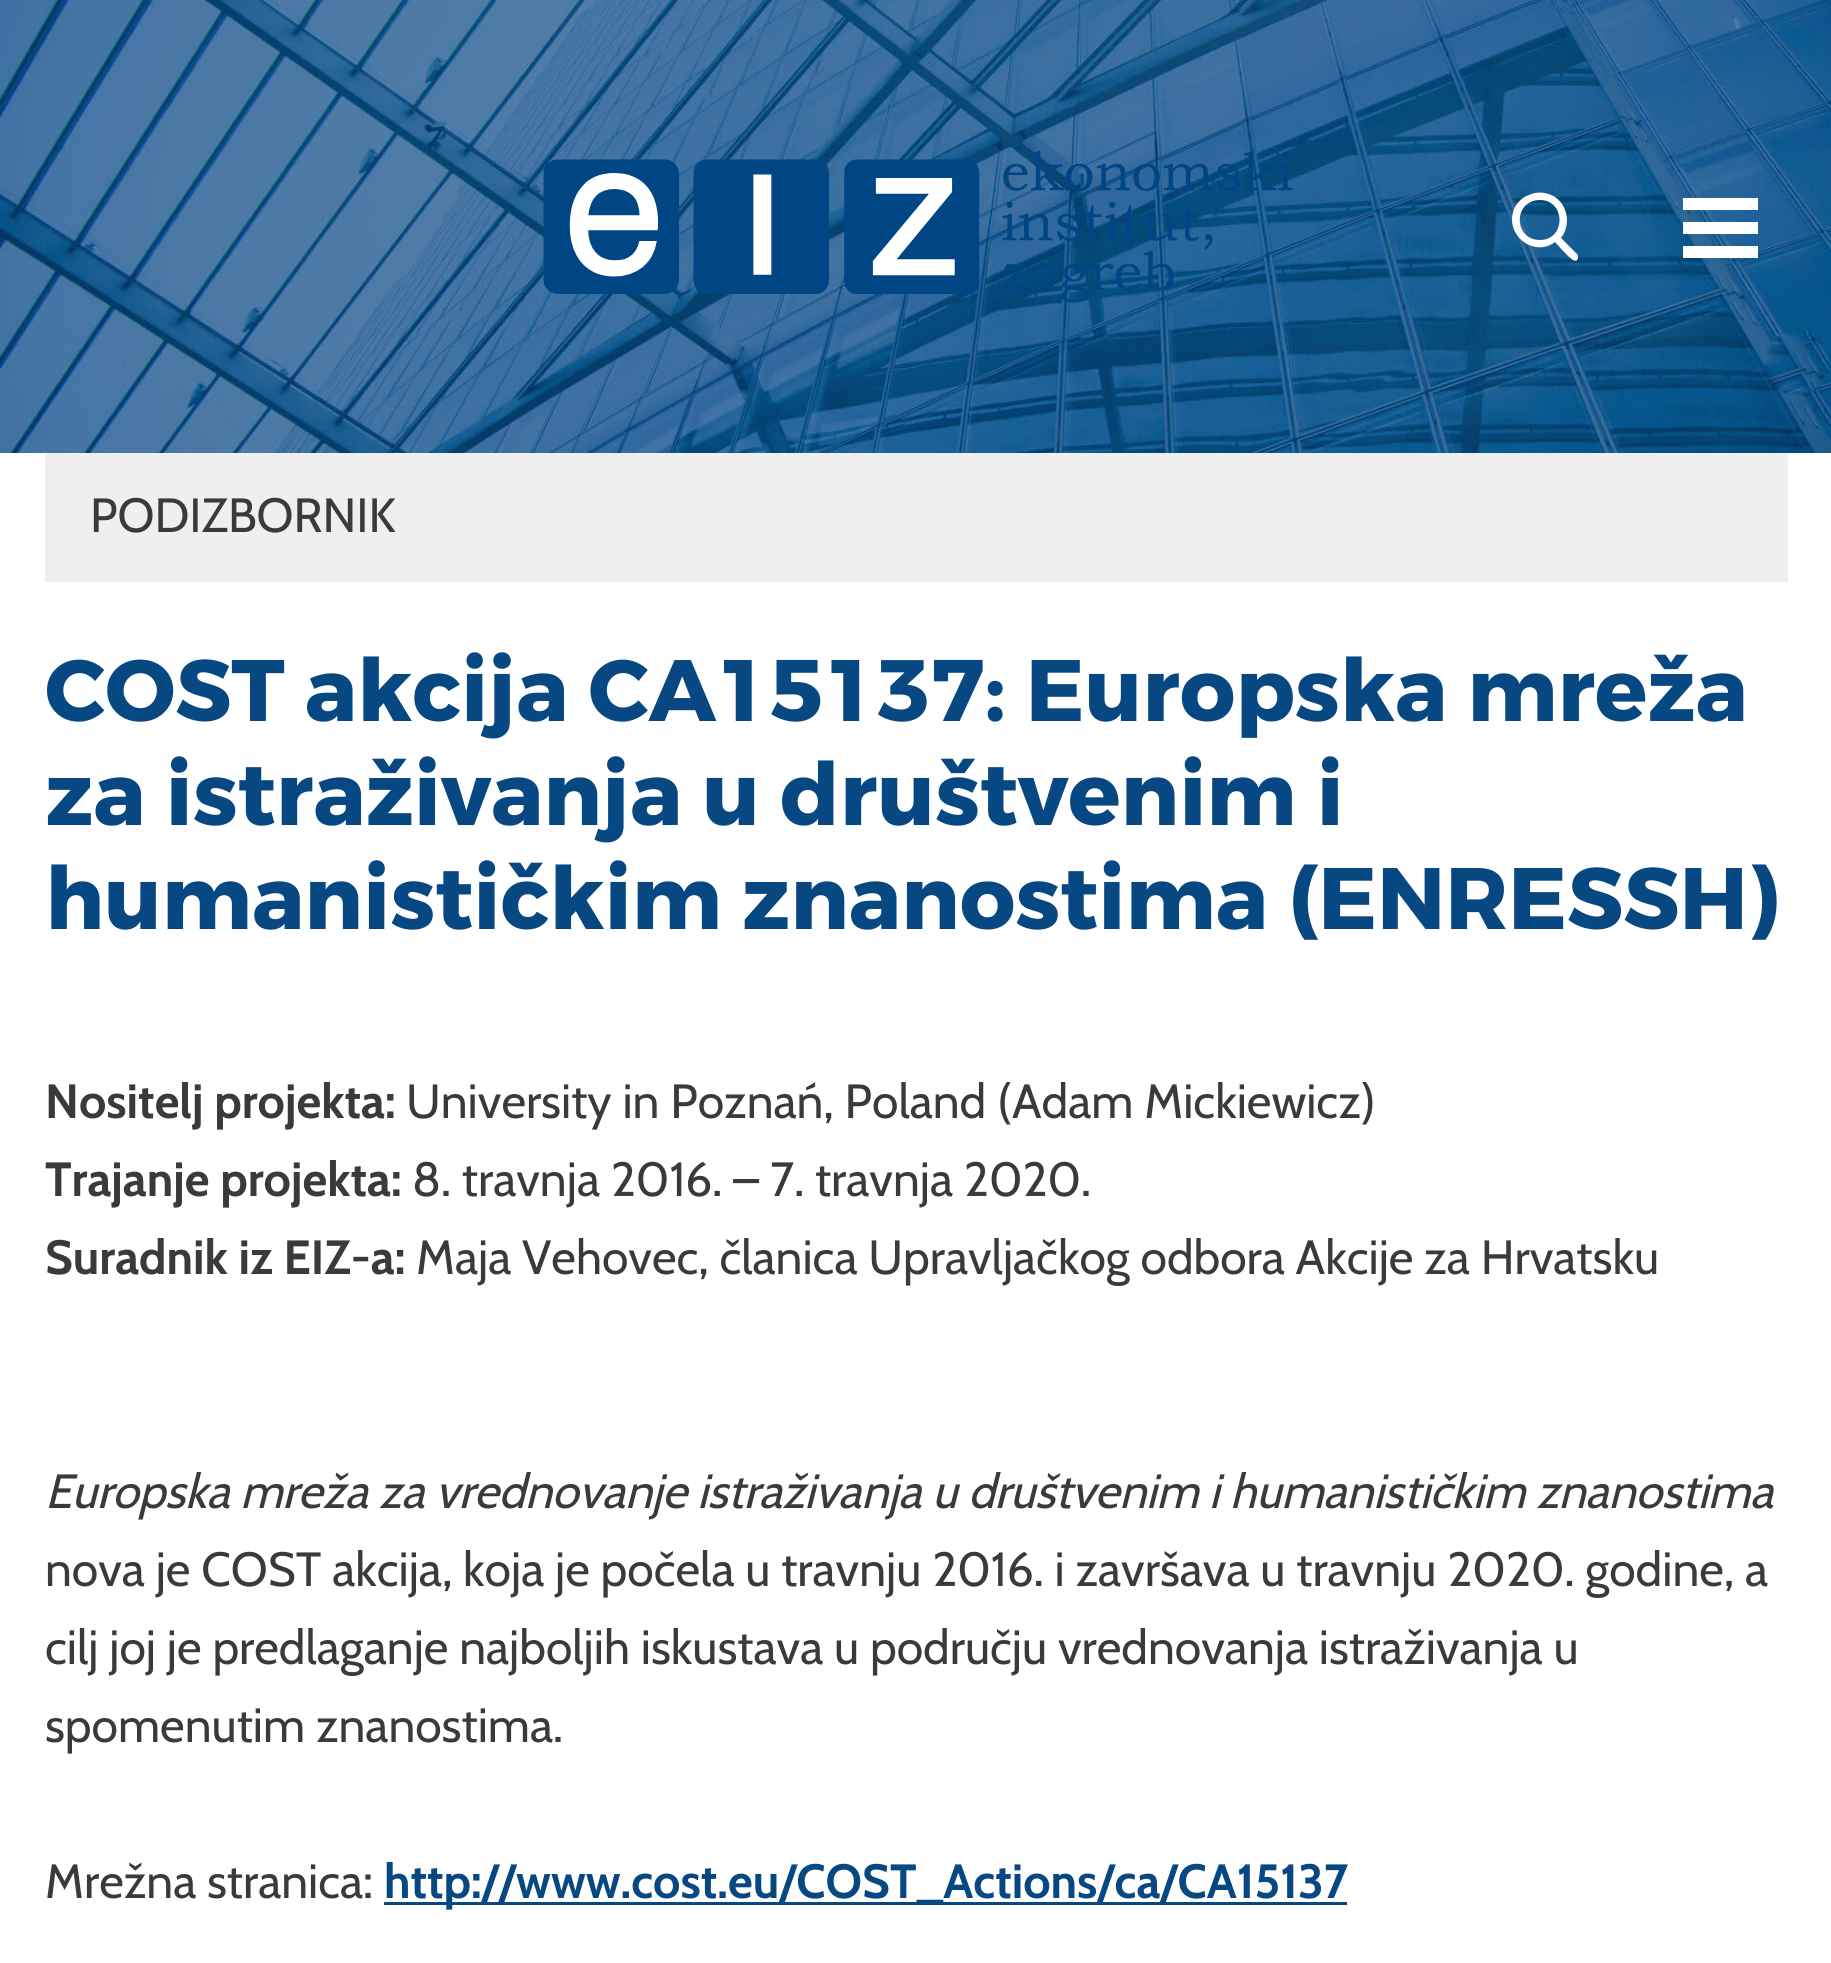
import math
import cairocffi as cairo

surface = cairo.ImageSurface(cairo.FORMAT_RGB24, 1831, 1963)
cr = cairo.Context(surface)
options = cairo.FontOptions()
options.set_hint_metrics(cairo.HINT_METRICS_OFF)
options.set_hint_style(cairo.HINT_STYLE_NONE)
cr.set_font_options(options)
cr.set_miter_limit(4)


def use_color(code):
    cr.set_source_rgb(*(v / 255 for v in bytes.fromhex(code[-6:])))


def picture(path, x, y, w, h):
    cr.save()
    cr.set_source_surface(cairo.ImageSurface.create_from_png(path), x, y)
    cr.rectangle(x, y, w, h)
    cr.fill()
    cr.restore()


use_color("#ffffff")
cr.paint()
picture("img1.png", 0, 0, 1831, 453)
picture("img2.png", 543, 151, 750, 152)
use_color("#ffffff")
cr.new_path()
cr.move_to(1577, 254)
cr.line_to(1561, 238)
cr.curve_to(1571, 225, 1568, 206, 1555, 197)
cr.curve_to(1547, 192, 1537, 191, 1529, 195)
cr.curve_to(1522, 197, 1517, 203, 1514, 209)
cr.curve_to(1504, 235, 1534, 258, 1555, 242)
cr.line_to(1563, 251)
cr.curve_to(1564, 251, 1576, 267, 1578, 258)
cr.curve_to(1578, 256, 1578, 255, 1577, 254)
cr.close_path()
cr.move_to(1540, 200)
cr.curve_to(1566, 200, 1566, 240, 1540, 240)
cr.curve_to(1513, 240, 1513, 200, 1540, 200)
cr.close_path()
cr.fill()
cr.rectangle(1683, 198, 75, 12)
cr.fill()
cr.rectangle(1683, 222, 75, 12)
cr.fill()
cr.rectangle(1683, 246, 75, 12)
cr.fill()
use_color("#efefef")
cr.rectangle(45, 453, 1743, 129)
cr.fill()
cr.select_font_face("Cabin")
cr.set_font_size(48)
use_color("#3a3a3a")
cr.move_to(90, 532)
cr.show_text("PODIZBORNIK")
cr.select_font_face("Montserrat", cairo.FONT_SLANT_NORMAL, cairo.FONT_WEIGHT_BOLD)
cr.set_font_size(87)
use_color("#074883")
cr.move_to(45, 721)
cr.show_text("COST akcija CA15137: Europska mreža")
cr.move_to(45, 825)
cr.show_text("za istraživanja u društvenim i")
cr.move_to(45, 929)
cr.show_text("humanističkim znanostima (ENRESSH)")
cr.select_font_face("Cabin", cairo.FONT_SLANT_NORMAL, cairo.FONT_WEIGHT_BOLD)
cr.set_font_size(48)
use_color("#3a3a3a")
cr.move_to(45, 1118)
cr.show_text("Nositelj projekta:")
cr.select_font_face("Cabin")
cr.move_to(406, 1118)
cr.show_text("University in Poznań, Poland (Adam Mickiewicz)")
cr.select_font_face("Cabin", cairo.FONT_SLANT_NORMAL, cairo.FONT_WEIGHT_BOLD)
cr.move_to(45, 1196)
cr.show_text("Trajanje projekta:")
cr.select_font_face("Cabin")
cr.move_to(412, 1196)
cr.show_text("8. travnja 2016. – 7. travnja 2020.")
cr.select_font_face("Cabin", cairo.FONT_SLANT_NORMAL, cairo.FONT_WEIGHT_BOLD)
cr.move_to(45, 1274)
cr.show_text("Suradnik iz EIZ-a:")
cr.select_font_face("Cabin")
cr.move_to(416, 1274)
cr.show_text("Maja Vehovec, članica Upravljačkog odbora Akcije za Hrvatsku")
cr.select_font_face("Cabin", cairo.FONT_SLANT_ITALIC)
cr.move_to(45, 1508)
cr.show_text("Europska mreža za vrednovanje istraživanja u društvenim i humanističkim znanostima")
cr.select_font_face("Cabin")
cr.move_to(45, 1586)
cr.show_text("nova je COST akcija, koja je počela u travnju 2016. i završava u travnju 2020. godine, a")
cr.move_to(45, 1664)
cr.show_text("cilj joj je predlaganje najboljih iskustava u području vrednovanja istraživanja u")
cr.move_to(45, 1742)
cr.show_text("spomenutim znanostima.")
cr.move_to(45, 1898)
cr.show_text("Mrežna stranica:")
use_color("#074883")
cr.rectangle(384, 1902, 963, 3)
cr.fill()
cr.select_font_face("Cabin", cairo.FONT_SLANT_NORMAL, cairo.FONT_WEIGHT_BOLD)
cr.move_to(384, 1898)
cr.show_text("http://www.cost.eu/COST_Actions/ca/CA15137")
surface.write_to_png("result.png")
